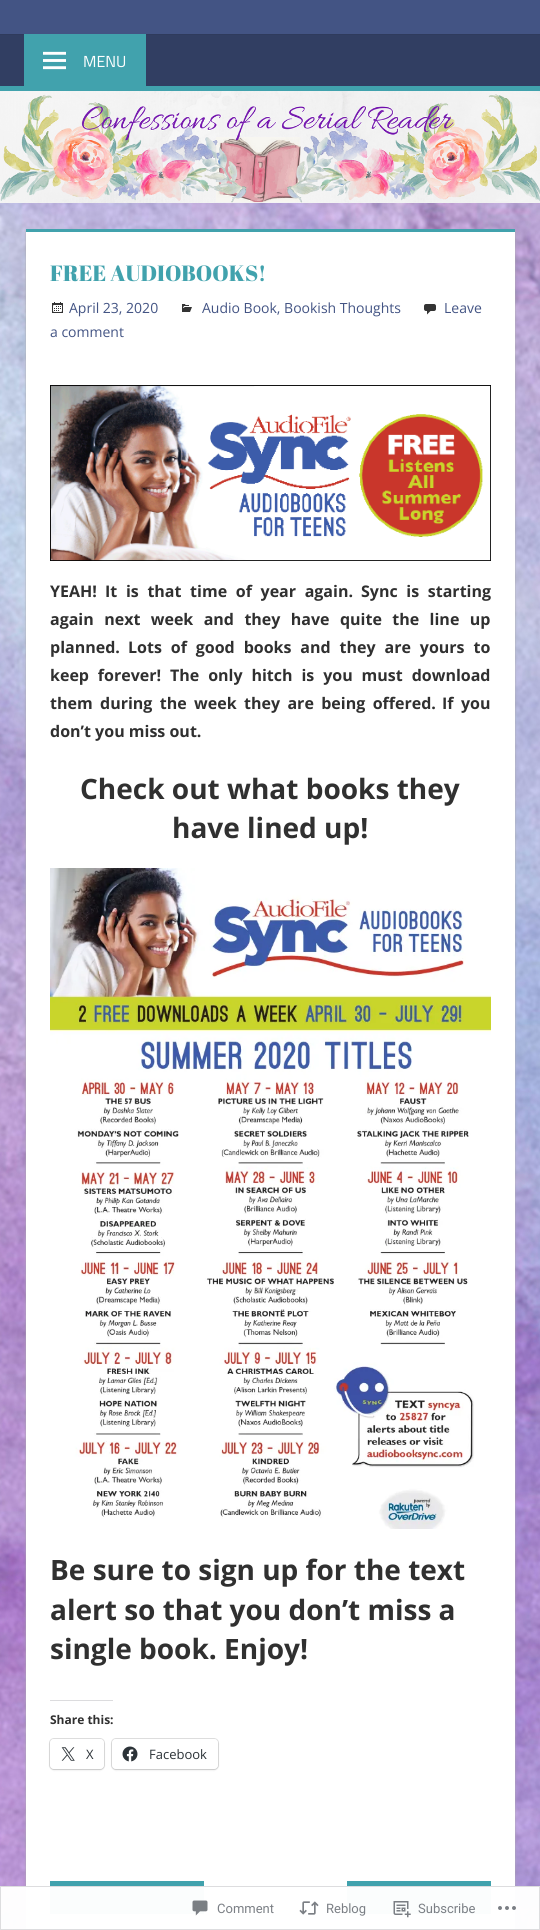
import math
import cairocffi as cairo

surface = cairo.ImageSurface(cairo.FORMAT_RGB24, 540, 1930)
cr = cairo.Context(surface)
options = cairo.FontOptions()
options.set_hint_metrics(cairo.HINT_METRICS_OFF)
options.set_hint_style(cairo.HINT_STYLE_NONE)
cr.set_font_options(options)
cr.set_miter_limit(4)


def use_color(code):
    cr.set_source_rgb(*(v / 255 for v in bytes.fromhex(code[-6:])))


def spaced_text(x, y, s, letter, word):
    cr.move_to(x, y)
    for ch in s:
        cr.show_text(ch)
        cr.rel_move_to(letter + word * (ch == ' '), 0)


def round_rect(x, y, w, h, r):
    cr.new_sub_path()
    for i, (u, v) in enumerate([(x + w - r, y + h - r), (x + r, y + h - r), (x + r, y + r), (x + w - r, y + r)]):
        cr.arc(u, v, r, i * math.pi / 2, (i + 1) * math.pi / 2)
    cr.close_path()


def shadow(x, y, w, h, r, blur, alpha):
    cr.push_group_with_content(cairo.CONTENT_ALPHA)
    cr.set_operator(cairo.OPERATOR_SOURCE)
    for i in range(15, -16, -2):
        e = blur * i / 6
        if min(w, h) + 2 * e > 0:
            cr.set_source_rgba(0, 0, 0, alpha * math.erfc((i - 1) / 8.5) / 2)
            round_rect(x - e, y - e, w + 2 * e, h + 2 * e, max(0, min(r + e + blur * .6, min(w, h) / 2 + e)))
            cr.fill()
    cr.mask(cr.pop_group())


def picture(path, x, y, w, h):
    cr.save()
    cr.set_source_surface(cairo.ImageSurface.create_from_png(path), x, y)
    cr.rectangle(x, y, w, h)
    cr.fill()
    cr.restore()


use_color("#ffffff")
cr.paint()
picture("img1.png", 0, 91, 540, 1839)
use_color("#435484")
cr.rectangle(0, 0, 540, 34)
cr.fill()
use_color("#313e62")
cr.rectangle(0, 35, 540, 51)
cr.fill()
use_color("#2f3b5d")
cr.rectangle(0, 34, 540, 1)
cr.fill()
use_color("#41a2ad")
cr.rectangle(0, 86, 540, 5)
cr.fill()
cr.rectangle(24, 34, 122, 52)
cr.fill()
picture("img2.png", 43, 51, 23, 19)
cr.select_font_face("Titillium Web")
cr.set_font_size(16)
use_color("#ffffff")
cr.move_to(83, 67)
cr.show_text("MENU")
picture("img3.png", 0, 91, 540, 112)
use_color("#aaaaaa")
shadow(26, 231, 489, 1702, 0, 1, 1)
use_color("#ffffff")
cr.rectangle(26, 232, 489, 1698)
cr.fill()
use_color("#41a2ad")
cr.rectangle(26, 229, 489, 3)
cr.fill()
cr.select_font_face("Abril Fatface")
cr.set_font_size(22)
cr.move_to(50, 281)
cr.show_text("FREE AUDIOBOOKS!")
picture("img4.png", 52, 302, 11, 11)
cr.select_font_face("Open Sans")
cr.set_font_size(14)
use_color("#435484")
cr.move_to(69, 313)
cr.show_text("April 23, 2020")
picture("img5.png", 182, 304, 10, 8)
cr.move_to(202, 313)
cr.show_text("Audio Book, Bookish Thoughts")
picture("img6.png", 424, 304, 12, 11)
cr.move_to(444, 313)
cr.show_text("Leave")
cr.move_to(50, 337)
cr.show_text("a comment")
picture("img7.png", 50, 385, 441, 176)
cr.select_font_face("Open Sans", cairo.FONT_SLANT_NORMAL, cairo.FONT_WEIGHT_BOLD)
cr.set_font_size(16)
use_color("#303030")
cr.move_to(50, 597)
cr.show_text("YEAH!")
spaced_text(105, 597, "It is that time of year again.", 0, 4.5)
spaced_text(361, 597, "Sync is starting", 0, 4.5)
spaced_text(50, 625, "again next week and they have quite the line up", 0, 6.25)
cr.move_to(50, 653)
cr.show_text("planned.")
spaced_text(128, 653, "Lots of good books and they are yours to", 0, 4.75)
spaced_text(50, 681, "keep forever!", 0, 4.75)
spaced_text(170, 681, "The only hitch is you must download", 0, 4.75)
spaced_text(50, 709, "them during the week they are being offered.", 0, 3.25)
spaced_text(442, 709, "If you", 0, 3.25)
cr.move_to(50, 737)
cr.show_text("don’t you miss out.")
cr.set_font_size(28)
cr.move_to(80, 799)
cr.show_text("Check out what books they")
cr.move_to(172, 838)
cr.show_text("have lined up!")
picture("img8.png", 50, 868, 441, 661)
cr.move_to(50, 1580)
cr.show_text("Be sure to sign up for the text")
cr.move_to(50, 1620)
cr.show_text("alert so that you don’t miss a")
cr.move_to(50, 1659)
cr.show_text("single book. Enjoy!")
use_color("#dcdcde")
cr.rectangle(50, 1700, 63, 1)
cr.fill()
cr.set_font_size(12)
use_color("#303030")
cr.move_to(50, 1724)
cr.show_text("Share this:")
round_rect(49.5, 1738.5, 55, 31, 4.5)
use_color("#e0e0e0")
cr.set_line_width(1)
cr.stroke()
use_color("#000000")
shadow(50, 1740, 54, 30, 4, 1, 0.12)
use_color("#ffffff")
round_rect(50, 1739, 54, 30, 4)
cr.fill()
picture("img9.png", 61, 1747, 14, 14)
cr.select_font_face("Open Sans")
cr.set_font_size(13)
use_color("#2c3338")
cr.move_to(86, 1759)
cr.show_text("X")
round_rect(111.5, 1738.5, 107, 31, 4.5)
use_color("#e0e0e0")
cr.stroke()
use_color("#000000")
shadow(112, 1740, 106, 30, 4, 1, 0.12)
use_color("#ffffff")
round_rect(112, 1739, 106, 30, 4)
cr.fill()
picture("img10.png", 122, 1746, 16, 16)
use_color("#2c3338")
cr.move_to(149, 1759)
cr.show_text("Facebook")
use_color("#41a2ad")
cr.rectangle(50, 1881, 154, 33)
cr.fill()
cr.rectangle(347, 1881, 144, 33)
cr.fill()
cr.set_source_rgba(1, 1, 1, 0.98)
cr.rectangle(0, 1886, 540, 44)
cr.fill()
cr.rectangle(0.5, 1886.5, 539, 43)
cr.set_source_rgba(0.863, 0.863, 0.871, 0.98)
cr.stroke()
picture("img11.png", 192, 1900, 16, 16)
cr.select_font_face("Roboto")
use_color("#7b7f85")
cr.move_to(217, 1913)
cr.show_text("Comment")
picture("img12.png", 299, 1901, 20, 14)
cr.move_to(326, 1913)
cr.show_text("Reblog")
picture("img13.png", 393, 1901, 18, 17)
cr.move_to(418, 1913)
cr.show_text("Subscribe")
picture("img14.png", 498, 1906, 18, 4)
surface.write_to_png("result.png")
